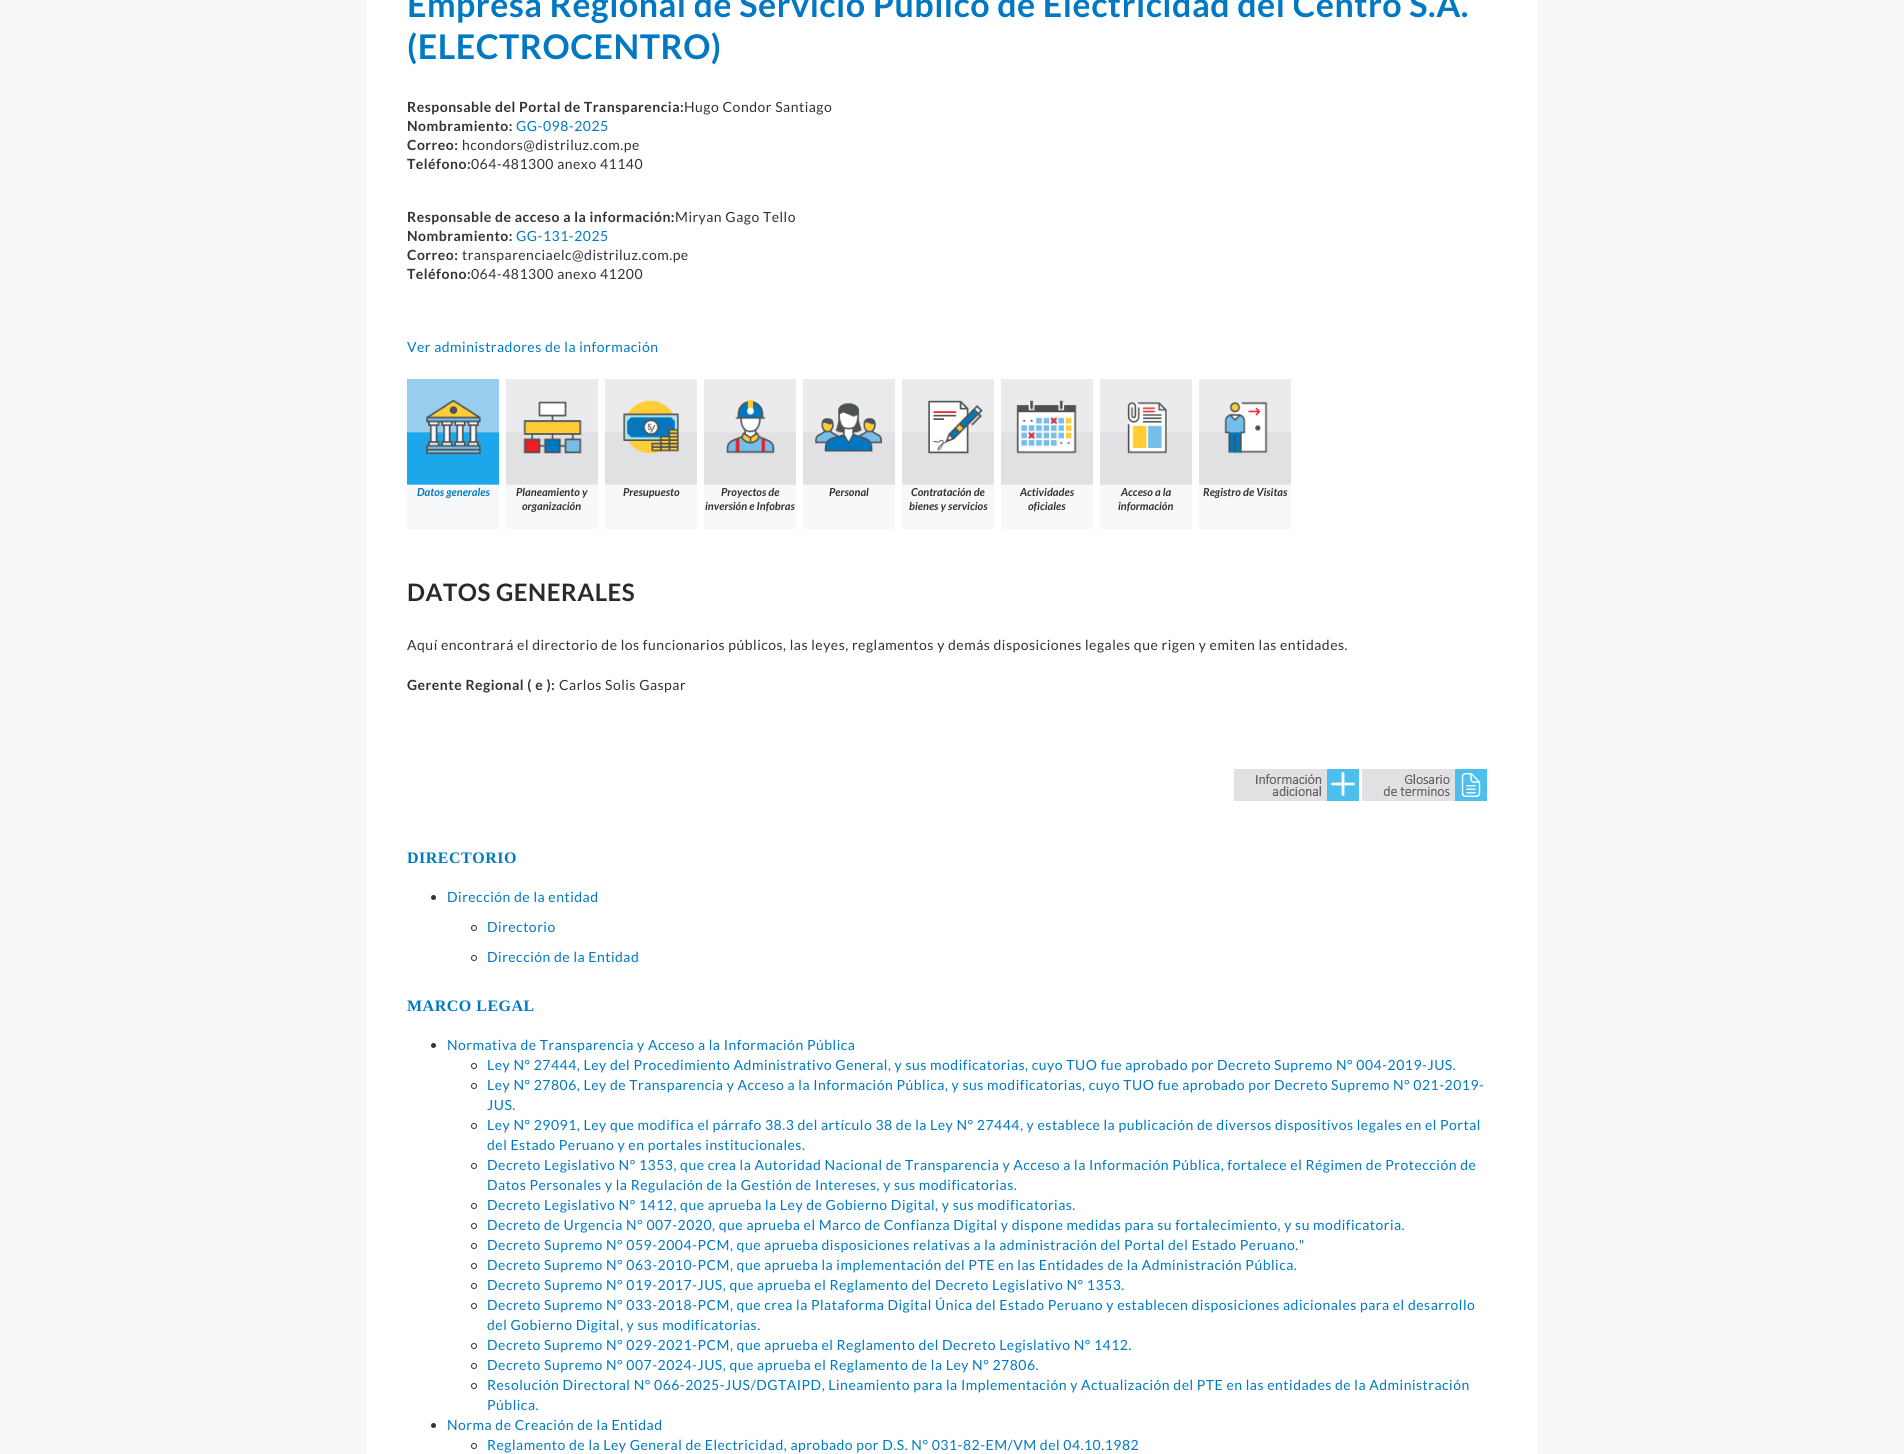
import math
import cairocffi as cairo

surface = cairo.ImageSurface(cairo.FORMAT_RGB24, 1904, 1454)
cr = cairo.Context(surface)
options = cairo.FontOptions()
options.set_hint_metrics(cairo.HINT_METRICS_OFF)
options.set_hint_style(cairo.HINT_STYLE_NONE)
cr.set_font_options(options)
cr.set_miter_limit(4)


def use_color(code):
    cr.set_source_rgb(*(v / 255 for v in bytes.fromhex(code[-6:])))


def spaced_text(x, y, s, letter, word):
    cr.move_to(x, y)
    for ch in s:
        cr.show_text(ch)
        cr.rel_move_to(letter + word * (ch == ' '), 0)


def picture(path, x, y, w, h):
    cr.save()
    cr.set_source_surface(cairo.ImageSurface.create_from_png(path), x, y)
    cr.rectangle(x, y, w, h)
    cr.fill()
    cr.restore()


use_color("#f7f8fa")
cr.paint()
use_color("#ffffff")
cr.rectangle(367, 0, 1170, 1454)
cr.fill()
cr.select_font_face("Lato", cairo.FONT_SLANT_NORMAL, cairo.FONT_WEIGHT_BOLD)
cr.set_font_size(34)
use_color("#0079c2")
spaced_text(407, 17, "Empresa Regional de Servicio Publico de Electricidad del Centro S.A.", 0.5, 0)
spaced_text(407, 59, "(ELECTROCENTRO)", 0.5, 0)
cr.set_font_size(14)
use_color("#323232")
spaced_text(407, 112, "Responsable del Portal de Transparencia:", 0.5, 0)
cr.select_font_face("Lato")
spaced_text(684, 112, "Hugo Condor Santiago", 0.5, 0)
cr.select_font_face("Lato", cairo.FONT_SLANT_NORMAL, cairo.FONT_WEIGHT_BOLD)
spaced_text(407, 131, "Nombramiento:", 0.5, 0)
cr.select_font_face("Lato")
use_color("#0079c2")
spaced_text(516, 131, "GG-098-2025", 0.5, 0)
cr.select_font_face("Lato", cairo.FONT_SLANT_NORMAL, cairo.FONT_WEIGHT_BOLD)
use_color("#323232")
spaced_text(407, 150, "Correo:", 0.5, 0)
cr.select_font_face("Lato")
spaced_text(462, 150, "hcondors@distriluz.com.pe", 0.5, 0)
cr.select_font_face("Lato", cairo.FONT_SLANT_NORMAL, cairo.FONT_WEIGHT_BOLD)
spaced_text(407, 169, "Teléfono:", 0.5, 0)
cr.select_font_face("Lato")
spaced_text(471, 169, "064-481300 anexo 41140", 0.5, 0)
cr.select_font_face("Lato", cairo.FONT_SLANT_NORMAL, cairo.FONT_WEIGHT_BOLD)
spaced_text(407, 222, "Responsable de acceso a la información:", 0.5, 0)
cr.select_font_face("Lato")
spaced_text(675, 222, "Miryan Gago Tello", 0.5, 0)
cr.select_font_face("Lato", cairo.FONT_SLANT_NORMAL, cairo.FONT_WEIGHT_BOLD)
spaced_text(407, 241, "Nombramiento:", 0.5, 0)
cr.select_font_face("Lato")
use_color("#0079c2")
spaced_text(516, 241, "GG-131-2025", 0.5, 0)
cr.select_font_face("Lato", cairo.FONT_SLANT_NORMAL, cairo.FONT_WEIGHT_BOLD)
use_color("#323232")
spaced_text(407, 260, "Correo:", 0.5, 0)
cr.select_font_face("Lato")
spaced_text(462, 260, "transparenciaelc@distriluz.com.pe", 0.5, 0)
cr.select_font_face("Lato", cairo.FONT_SLANT_NORMAL, cairo.FONT_WEIGHT_BOLD)
spaced_text(407, 279, "Teléfono:", 0.5, 0)
cr.select_font_face("Lato")
spaced_text(471, 279, "064-481300 anexo 41200", 0.5, 0)
use_color("#0079c2")
spaced_text(407, 352, "Ver administradores de la información", 0.5, 0)
gradient = cairo.LinearGradient(453, 379, 453, 529)
gradient.add_color_stop_rgba(0, 0.6, 0.804, 0.929, 1)
gradient.add_color_stop_rgba(0.35, 0.6, 0.804, 0.929, 1)
gradient.add_color_stop_rgba(0.36, 0.114, 0.655, 0.922, 1)
gradient.add_color_stop_rgba(0.7, 0.114, 0.655, 0.922, 1)
gradient.add_color_stop_rgba(0.71, 0.969, 0.973, 0.98, 1)
gradient.add_color_stop_rgba(1, 0.969, 0.973, 0.98, 1)
cr.set_source(gradient)
cr.rectangle(407, 379, 92, 150)
cr.fill()
picture("img1.png", 426, 399, 55, 56)
cr.select_font_face("Lato", cairo.FONT_SLANT_ITALIC, cairo.FONT_WEIGHT_BOLD)
cr.set_font_size(11)
use_color("#0079c2")
cr.move_to(417, 496)
cr.show_text("Datos generales")
gradient = cairo.LinearGradient(552, 379, 552, 529)
gradient.add_color_stop_rgba(0, 0.922, 0.922, 0.929, 1)
gradient.add_color_stop_rgba(0.35, 0.922, 0.922, 0.929, 1)
gradient.add_color_stop_rgba(0.36, 0.882, 0.882, 0.89, 1)
gradient.add_color_stop_rgba(0.7, 0.882, 0.882, 0.89, 1)
gradient.add_color_stop_rgba(0.71, 0.969, 0.973, 0.98, 1)
gradient.add_color_stop_rgba(1, 0.969, 0.973, 0.98, 1)
cr.set_source(gradient)
cr.rectangle(506, 379, 92, 150)
cr.fill()
picture("img2.png", 523, 401, 59, 53)
use_color("#323232")
cr.move_to(516, 496)
cr.show_text("Planeamiento y")
cr.move_to(522, 510)
cr.show_text("organización")
gradient = cairo.LinearGradient(651, 379, 651, 529)
gradient.add_color_stop_rgba(0, 0.922, 0.922, 0.929, 1)
gradient.add_color_stop_rgba(0.35, 0.922, 0.922, 0.929, 1)
gradient.add_color_stop_rgba(0.36, 0.882, 0.882, 0.89, 1)
gradient.add_color_stop_rgba(0.7, 0.882, 0.882, 0.89, 1)
gradient.add_color_stop_rgba(0.71, 0.969, 0.973, 0.98, 1)
gradient.add_color_stop_rgba(1, 0.969, 0.973, 0.98, 1)
cr.set_source(gradient)
cr.rectangle(605, 379, 92, 150)
cr.fill()
picture("img3.png", 623, 400, 56, 54)
use_color("#323232")
cr.move_to(623, 496)
cr.show_text("Presupuesto")
gradient = cairo.LinearGradient(750, 379, 750, 529)
gradient.add_color_stop_rgba(0, 0.922, 0.922, 0.929, 1)
gradient.add_color_stop_rgba(0.35, 0.922, 0.922, 0.929, 1)
gradient.add_color_stop_rgba(0.36, 0.882, 0.882, 0.89, 1)
gradient.add_color_stop_rgba(0.7, 0.882, 0.882, 0.89, 1)
gradient.add_color_stop_rgba(0.71, 0.969, 0.973, 0.98, 1)
gradient.add_color_stop_rgba(1, 0.969, 0.973, 0.98, 1)
cr.set_source(gradient)
cr.rectangle(704, 379, 92, 150)
cr.fill()
picture("img4.png", 726, 399, 49, 55)
use_color("#323232")
cr.move_to(721, 496)
cr.show_text("Proyectos de")
cr.move_to(705, 510)
cr.show_text("inversión e Infobras")
gradient = cairo.LinearGradient(849, 379, 849, 529)
gradient.add_color_stop_rgba(0, 0.922, 0.922, 0.929, 1)
gradient.add_color_stop_rgba(0.35, 0.922, 0.922, 0.929, 1)
gradient.add_color_stop_rgba(0.36, 0.882, 0.882, 0.89, 1)
gradient.add_color_stop_rgba(0.7, 0.882, 0.882, 0.89, 1)
gradient.add_color_stop_rgba(0.71, 0.969, 0.973, 0.98, 1)
gradient.add_color_stop_rgba(1, 0.969, 0.973, 0.98, 1)
cr.set_source(gradient)
cr.rectangle(803, 379, 92, 150)
cr.fill()
picture("img5.png", 815, 403, 67, 49)
use_color("#323232")
cr.move_to(829, 496)
cr.show_text("Personal")
gradient = cairo.LinearGradient(948, 379, 948, 529)
gradient.add_color_stop_rgba(0, 0.922, 0.922, 0.929, 1)
gradient.add_color_stop_rgba(0.35, 0.922, 0.922, 0.929, 1)
gradient.add_color_stop_rgba(0.36, 0.882, 0.882, 0.89, 1)
gradient.add_color_stop_rgba(0.7, 0.882, 0.882, 0.89, 1)
gradient.add_color_stop_rgba(0.71, 0.969, 0.973, 0.98, 1)
gradient.add_color_stop_rgba(1, 0.969, 0.973, 0.98, 1)
cr.set_source(gradient)
cr.rectangle(902, 379, 92, 150)
cr.fill()
picture("img6.png", 928, 400, 55, 54)
use_color("#323232")
cr.move_to(911, 496)
cr.show_text("Contratación de")
cr.move_to(909, 510)
cr.show_text("bienes y servicios")
gradient = cairo.LinearGradient(1047, 379, 1047, 529)
gradient.add_color_stop_rgba(0, 0.922, 0.922, 0.929, 1)
gradient.add_color_stop_rgba(0.35, 0.922, 0.922, 0.929, 1)
gradient.add_color_stop_rgba(0.36, 0.882, 0.882, 0.89, 1)
gradient.add_color_stop_rgba(0.7, 0.882, 0.882, 0.89, 1)
gradient.add_color_stop_rgba(0.71, 0.969, 0.973, 0.98, 1)
gradient.add_color_stop_rgba(1, 0.969, 0.973, 0.98, 1)
cr.set_source(gradient)
cr.rectangle(1001, 379, 92, 150)
cr.fill()
picture("img7.png", 1016, 400, 61, 54)
use_color("#323232")
cr.move_to(1020, 496)
cr.show_text("Actividades")
cr.move_to(1028, 510)
cr.show_text("oficiales")
gradient = cairo.LinearGradient(1146, 379, 1146, 529)
gradient.add_color_stop_rgba(0, 0.922, 0.922, 0.929, 1)
gradient.add_color_stop_rgba(0.35, 0.922, 0.922, 0.929, 1)
gradient.add_color_stop_rgba(0.36, 0.882, 0.882, 0.89, 1)
gradient.add_color_stop_rgba(0.7, 0.882, 0.882, 0.89, 1)
gradient.add_color_stop_rgba(0.71, 0.969, 0.973, 0.98, 1)
gradient.add_color_stop_rgba(1, 0.969, 0.973, 0.98, 1)
cr.set_source(gradient)
cr.rectangle(1100, 379, 92, 150)
cr.fill()
picture("img8.png", 1127, 401, 40, 53)
use_color("#323232")
cr.move_to(1121, 496)
cr.show_text("Acceso a la")
cr.move_to(1118, 510)
cr.show_text("información")
gradient = cairo.LinearGradient(1245, 379, 1245, 529)
gradient.add_color_stop_rgba(0, 0.922, 0.922, 0.929, 1)
gradient.add_color_stop_rgba(0.35, 0.922, 0.922, 0.929, 1)
gradient.add_color_stop_rgba(0.36, 0.882, 0.882, 0.89, 1)
gradient.add_color_stop_rgba(0.7, 0.882, 0.882, 0.89, 1)
gradient.add_color_stop_rgba(0.71, 0.969, 0.973, 0.98, 1)
gradient.add_color_stop_rgba(1, 0.969, 0.973, 0.98, 1)
cr.set_source(gradient)
cr.rectangle(1199, 379, 92, 150)
cr.fill()
picture("img9.png", 1224, 401, 44, 53)
use_color("#323232")
cr.move_to(1203, 496)
cr.show_text("Registro de Visitas")
cr.select_font_face("Lato", cairo.FONT_SLANT_NORMAL, cairo.FONT_WEIGHT_BOLD)
cr.set_font_size(24)
use_color("#2b2a2a")
spaced_text(407, 601, "DATOS GENERALES", 0.5, 0)
cr.select_font_face("Lato")
cr.set_font_size(14)
use_color("#323232")
spaced_text(407, 650, "Aquí encontrará el directorio de los funcionarios públicos, las leyes, reglamentos y demás disposiciones legales que rigen y emiten las entidades.", 0.5, 0)
cr.select_font_face("Lato", cairo.FONT_SLANT_NORMAL, cairo.FONT_WEIGHT_BOLD)
spaced_text(407, 690, "Gerente Regional ( e ):", 0.5, 0)
cr.select_font_face("Lato")
spaced_text(559, 690, "Carlos Solis Gaspar", 0.5, 0)
picture("img10.png", 1234, 769, 125, 32)
picture("img11.png", 1362, 769, 125, 32)
cr.select_font_face("Liberation Serif", cairo.FONT_SLANT_NORMAL, cairo.FONT_WEIGHT_BOLD)
cr.set_font_size(16)
use_color("#0079c2")
spaced_text(407, 863, "DIRECTORIO", 0.5, 0)
use_color("#333333")
cr.new_path()
cr.arc(433.5, 897.5, 2.5, 0, 2 * math.pi)
cr.fill()
cr.select_font_face("Lato")
cr.set_font_size(14)
use_color("#0079c2")
spaced_text(447, 902, "Dirección de la entidad", 0.5, 0)
cr.new_path()
cr.arc(474, 928, 2.5, 0, 2 * math.pi)
use_color("#333333")
cr.set_line_width(1)
cr.stroke()
use_color("#0079c2")
spaced_text(487, 932, "Directorio", 0.5, 0)
cr.new_path()
cr.arc(474, 958, 2.5, 0, 2 * math.pi)
use_color("#333333")
cr.stroke()
use_color("#0079c2")
spaced_text(487, 962, "Dirección de la Entidad", 0.5, 0)
cr.select_font_face("Liberation Serif", cairo.FONT_SLANT_NORMAL, cairo.FONT_WEIGHT_BOLD)
cr.set_font_size(16)
spaced_text(407, 1011, "MARCO LEGAL", 0.5, 0)
use_color("#333333")
cr.new_path()
cr.arc(433.5, 1045.5, 2.5, 0, 2 * math.pi)
cr.fill()
cr.select_font_face("Lato")
cr.set_font_size(14)
use_color("#0079c2")
spaced_text(447, 1050, "Normativa de Transparencia y Acceso a la Información Pública", 0.5, 0)
cr.new_path()
cr.arc(474, 1066, 2.5, 0, 2 * math.pi)
use_color("#333333")
cr.stroke()
use_color("#0079c2")
spaced_text(487, 1070, "Ley N° 27444, Ley del Procedimiento Administrativo General, y sus modificatorias, cuyo TUO fue aprobado por Decreto Supremo N° 004-2019-JUS.", 0.5, 0)
cr.new_path()
cr.arc(474, 1086, 2.5, 0, 2 * math.pi)
use_color("#333333")
cr.stroke()
use_color("#0079c2")
spaced_text(487, 1090, "Ley N° 27806, Ley de Transparencia y Acceso a la Información Pública, y sus modificatorias, cuyo TUO fue aprobado por Decreto Supremo N° 021-2019-", 0.5, 0)
spaced_text(487, 1110, "JUS.", 0.5, 0)
cr.new_path()
cr.arc(474, 1126, 2.5, 0, 2 * math.pi)
use_color("#333333")
cr.stroke()
use_color("#0079c2")
spaced_text(487, 1130, "Ley N° 29091, Ley que modifica el párrafo 38.3 del artículo 38 de la Ley N° 27444, y establece la publicación de diversos dispositivos legales en el Portal", 0.5, 0)
spaced_text(487, 1150, "del Estado Peruano y en portales institucionales.", 0.5, 0)
cr.new_path()
cr.arc(474, 1166, 2.5, 0, 2 * math.pi)
use_color("#333333")
cr.stroke()
use_color("#0079c2")
spaced_text(487, 1170, "Decreto Legislativo N° 1353, que crea la Autoridad Nacional de Transparencia y Acceso a la Información Pública, fortalece el Régimen de Protección de", 0.5, 0)
spaced_text(487, 1190, "Datos Personales y la Regulación de la Gestión de Intereses, y sus modificatorias.", 0.5, 0)
cr.new_path()
cr.arc(474, 1206, 2.5, 0, 2 * math.pi)
use_color("#333333")
cr.stroke()
use_color("#0079c2")
spaced_text(487, 1210, "Decreto Legislativo N° 1412, que aprueba la Ley de Gobierno Digital, y sus modificatorias.", 0.5, 0)
cr.new_path()
cr.arc(474, 1226, 2.5, 0, 2 * math.pi)
use_color("#333333")
cr.stroke()
use_color("#0079c2")
spaced_text(487, 1230, "Decreto de Urgencia N° 007-2020, que aprueba el Marco de Confianza Digital y dispone medidas para su fortalecimiento, y su modificatoria.", 0.5, 0)
cr.new_path()
cr.arc(474, 1246, 2.5, 0, 2 * math.pi)
use_color("#333333")
cr.stroke()
use_color("#0079c2")
spaced_text(487, 1250, "Decreto Supremo N° 059-2004-PCM, que aprueba disposiciones relativas a la administración del Portal del Estado Peruano.\"", 0.5, 0)
cr.new_path()
cr.arc(474, 1266, 2.5, 0, 2 * math.pi)
use_color("#333333")
cr.stroke()
use_color("#0079c2")
spaced_text(487, 1270, "Decreto Supremo N° 063-2010-PCM, que aprueba la implementación del PTE en las Entidades de la Administración Pública.", 0.5, 0)
cr.new_path()
cr.arc(474, 1286, 2.5, 0, 2 * math.pi)
use_color("#333333")
cr.stroke()
use_color("#0079c2")
spaced_text(487, 1290, "Decreto Supremo N° 019-2017-JUS, que aprueba el Reglamento del Decreto Legislativo N° 1353.", 0.5, 0)
cr.new_path()
cr.arc(474, 1306, 2.5, 0, 2 * math.pi)
use_color("#333333")
cr.stroke()
use_color("#0079c2")
spaced_text(487, 1310, "Decreto Supremo N° 033-2018-PCM, que crea la Plataforma Digital Única del Estado Peruano y establecen disposiciones adicionales para el desarrollo", 0.5, 0)
spaced_text(487, 1330, "del Gobierno Digital, y sus modificatorias.", 0.5, 0)
cr.new_path()
cr.arc(474, 1346, 2.5, 0, 2 * math.pi)
use_color("#333333")
cr.stroke()
use_color("#0079c2")
spaced_text(487, 1350, "Decreto Supremo N° 029-2021-PCM, que aprueba el Reglamento del Decreto Legislativo N° 1412.", 0.5, 0)
cr.new_path()
cr.arc(474, 1366, 2.5, 0, 2 * math.pi)
use_color("#333333")
cr.stroke()
use_color("#0079c2")
spaced_text(487, 1370, "Decreto Supremo N° 007-2024-JUS, que aprueba el Reglamento de la Ley N° 27806.", 0.5, 0)
cr.new_path()
cr.arc(474, 1386, 2.5, 0, 2 * math.pi)
use_color("#333333")
cr.stroke()
use_color("#0079c2")
spaced_text(487, 1390, "Resolución Directoral N° 066-2025-JUS/DGTAIPD, Lineamiento para la Implementación y Actualización del PTE en las entidades de la Administración", 0.5, 0)
spaced_text(487, 1410, "Pública.", 0.5, 0)
use_color("#333333")
cr.new_path()
cr.arc(433.5, 1425.5, 2.5, 0, 2 * math.pi)
cr.fill()
use_color("#0079c2")
spaced_text(447, 1430, "Norma de Creación de la Entidad", 0.5, 0)
cr.new_path()
cr.arc(474, 1446, 2.5, 0, 2 * math.pi)
use_color("#333333")
cr.stroke()
use_color("#0079c2")
spaced_text(487, 1450, "Reglamento de la Ley General de Electricidad, aprobado por D.S. N° 031-82-EM/VM del 04.10.1982", 0.5, 0)
surface.write_to_png("result.png")
